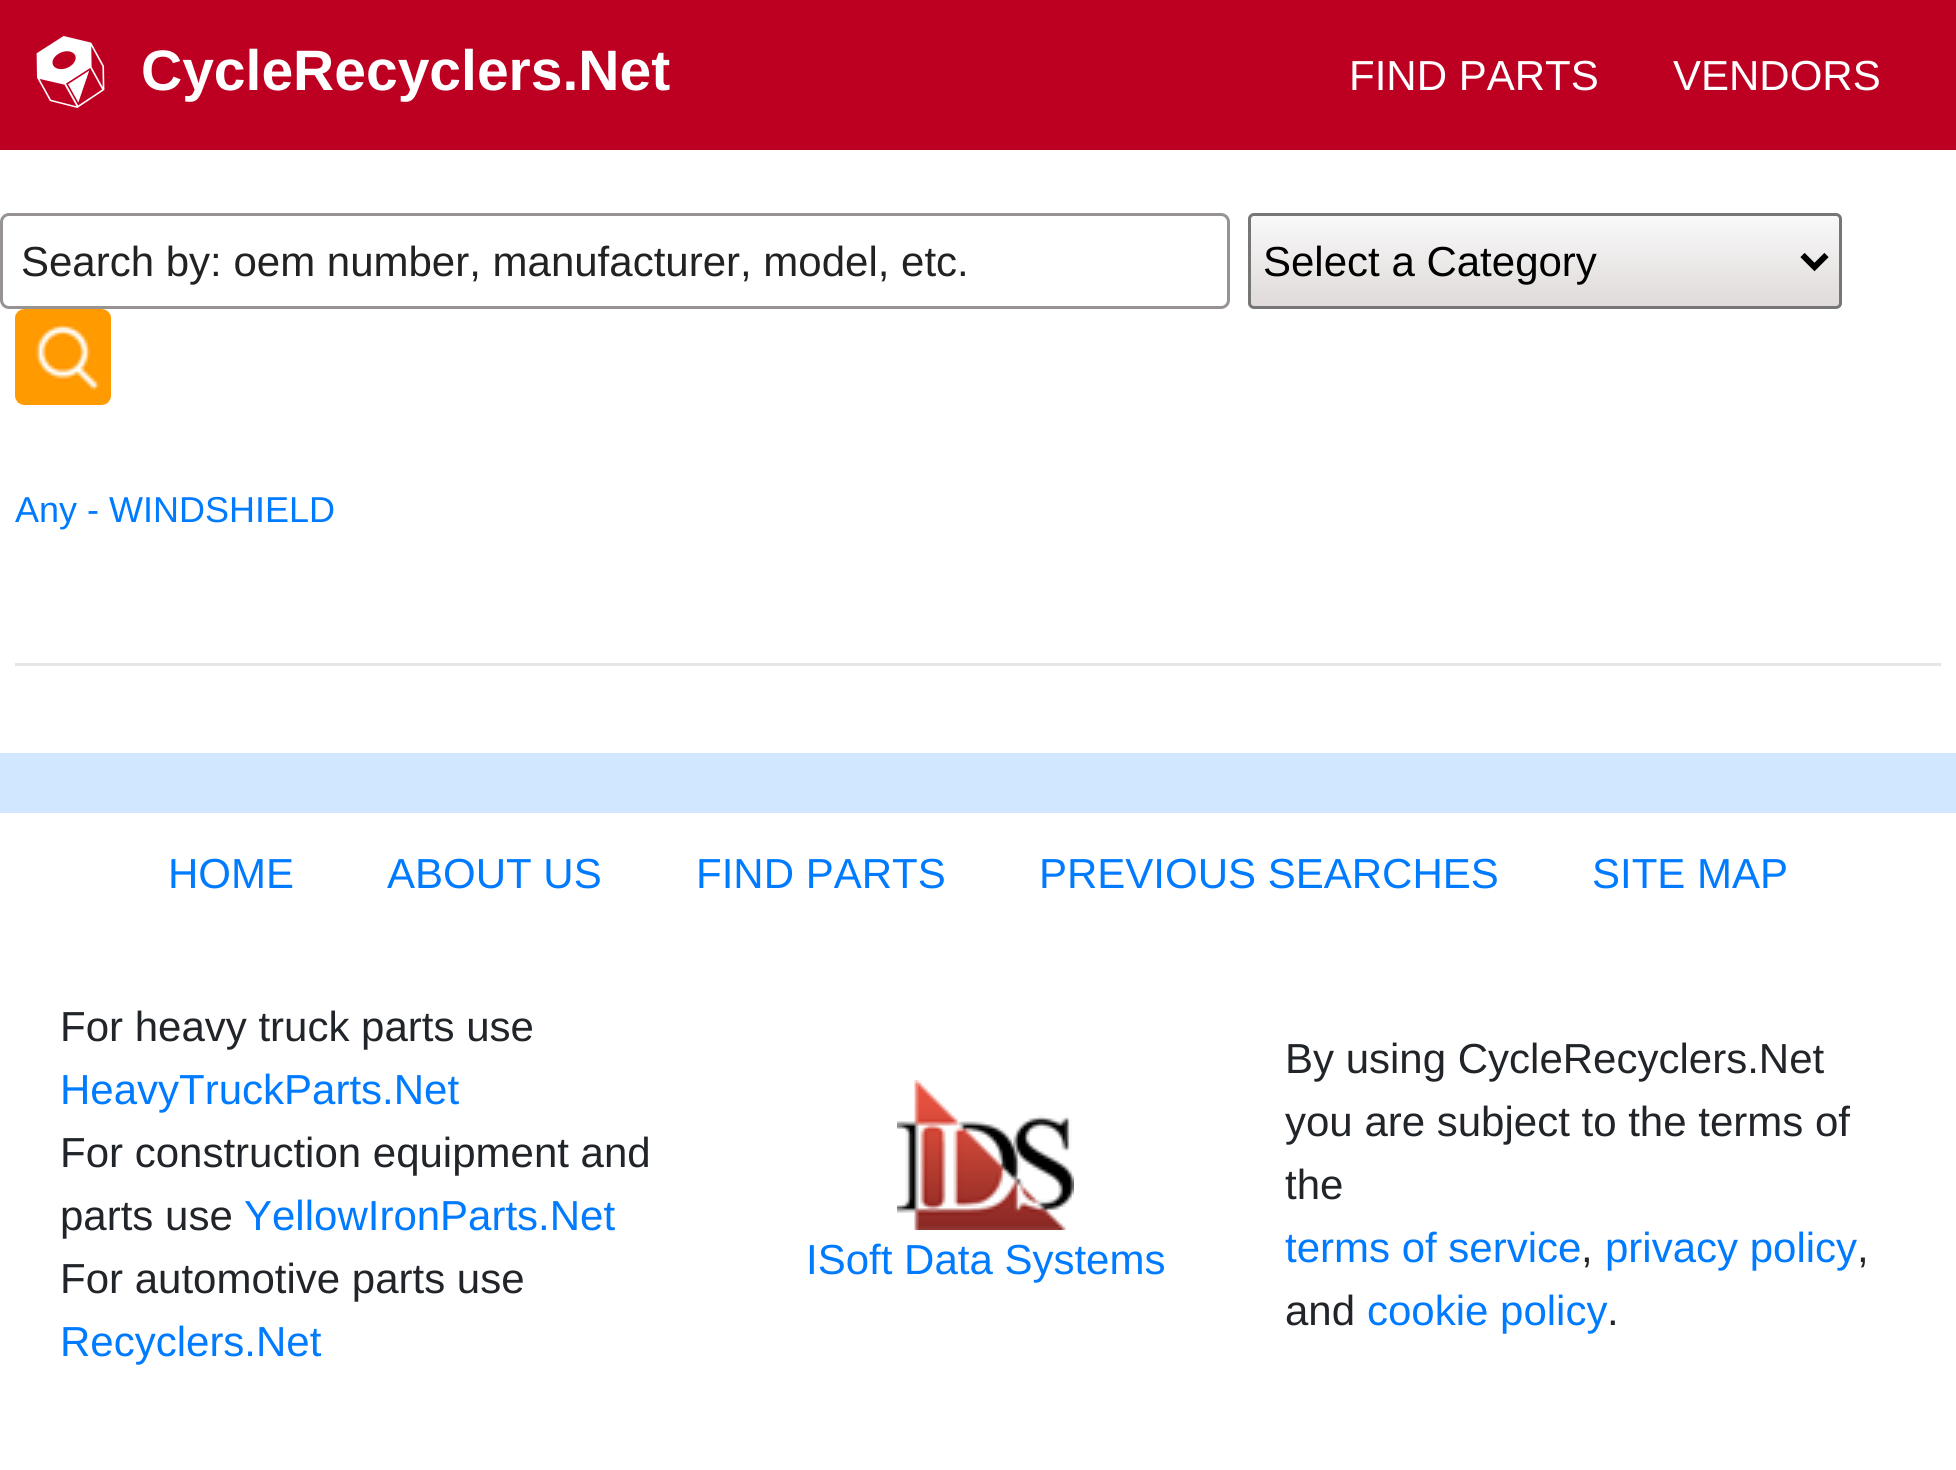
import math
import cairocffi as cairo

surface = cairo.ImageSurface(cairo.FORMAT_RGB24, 1956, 1470)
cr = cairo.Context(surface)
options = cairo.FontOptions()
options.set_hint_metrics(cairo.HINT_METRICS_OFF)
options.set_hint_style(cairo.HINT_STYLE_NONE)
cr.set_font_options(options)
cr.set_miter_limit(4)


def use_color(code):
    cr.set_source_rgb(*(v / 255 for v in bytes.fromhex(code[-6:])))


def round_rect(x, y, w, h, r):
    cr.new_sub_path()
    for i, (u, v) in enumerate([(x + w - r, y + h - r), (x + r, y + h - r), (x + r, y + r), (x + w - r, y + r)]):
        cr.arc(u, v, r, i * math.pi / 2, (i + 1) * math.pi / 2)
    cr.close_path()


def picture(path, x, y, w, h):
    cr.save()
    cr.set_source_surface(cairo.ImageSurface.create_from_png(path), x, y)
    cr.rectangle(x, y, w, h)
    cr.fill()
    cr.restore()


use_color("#ffffff")
cr.paint()
use_color("#bd0021")
cr.rectangle(0, 0, 1956, 150)
cr.fill()
picture("img1.png", 36, 36, 69, 72)
cr.select_font_face("Liberation Sans", cairo.FONT_SLANT_NORMAL, cairo.FONT_WEIGHT_BOLD)
cr.set_font_size(57)
use_color("#ffffff")
cr.move_to(141, 90)
cr.show_text("CycleRecyclers.Net")
cr.select_font_face("Liberation Sans")
cr.set_font_size(42)
cr.move_to(1349, 90)
cr.show_text("FIND PARTS")
cr.move_to(1673, 90)
cr.show_text("VENDORS")
round_rect(1.5, 214.5, 1227, 93, 7.5)
use_color("#989393")
cr.set_line_width(3)
cr.stroke()
use_color("#222222")
cr.move_to(21, 276)
cr.show_text("Search by: oem number, manufacturer, model, etc.")
cr.save()
round_rect(1248, 213, 594, 96, 6)
cr.clip()
gradient = cairo.LinearGradient(1545, 216, 1545, 306)
gradient.add_color_stop_rgba(0, 0.976, 0.976, 0.976, 1)
gradient.add_color_stop_rgba(1, 0.878, 0.855, 0.855, 1)
cr.set_source(gradient)
cr.rectangle(1248, 216, 594, 90)
cr.fill()
cr.restore()
round_rect(1249.5, 214.5, 591, 93, 4.5)
use_color("#767676")
cr.stroke()
cr.new_path()
cr.move_to(1802.5, 255)
cr.line_to(1814.5, 267)
cr.line_to(1826.5, 255)
use_color("#000000")
cr.set_line_width(6)
cr.stroke()
cr.move_to(1263, 276)
cr.show_text("Select a Category")
picture("img2.png", 15, 309, 96, 96)
cr.set_font_size(36)
use_color("#007bff")
cr.move_to(15, 522)
cr.show_text("Any - WINDSHIELD")
use_color("#e6e6e6")
cr.rectangle(15, 663, 1926, 3)
cr.fill()
use_color("#d1e6ff")
cr.rectangle(0, 753, 1956, 60)
cr.fill()
cr.set_font_size(42)
use_color("#007bff")
cr.move_to(168, 888)
cr.show_text("HOME")
cr.move_to(387, 888)
cr.show_text("ABOUT US")
cr.move_to(696, 888)
cr.show_text("FIND PARTS")
cr.move_to(1039, 888)
cr.show_text("PREVIOUS SEARCHES")
cr.move_to(1592, 888)
cr.show_text("SITE MAP")
use_color("#212529")
cr.move_to(60, 1041)
cr.show_text("For heavy truck parts use")
use_color("#007bff")
cr.move_to(60, 1104)
cr.show_text("HeavyTruckParts.Net")
use_color("#212529")
cr.move_to(60, 1167)
cr.show_text("For construction equipment and")
cr.move_to(60, 1230)
cr.show_text("parts use")
use_color("#007bff")
cr.move_to(244, 1230)
cr.show_text("YellowIronParts.Net")
use_color("#212529")
cr.move_to(60, 1293)
cr.show_text("For automotive parts use")
use_color("#007bff")
cr.move_to(60, 1356)
cr.show_text("Recyclers.Net")
picture("img3.png", 897, 1080, 177, 150)
cr.move_to(806, 1274)
cr.show_text("ISoft Data Systems")
use_color("#212529")
cr.move_to(1285, 1073)
cr.show_text("By using CycleRecyclers.Net")
cr.move_to(1285, 1136)
cr.show_text("you are subject to the terms of")
cr.move_to(1285, 1199)
cr.show_text("the")
use_color("#007bff")
cr.move_to(1285, 1262)
cr.show_text("terms of service")
use_color("#212529")
cr.move_to(1581, 1262)
cr.show_text(",")
use_color("#007bff")
cr.move_to(1605, 1262)
cr.show_text("privacy policy")
use_color("#212529")
cr.move_to(1857, 1262)
cr.show_text(",")
cr.move_to(1285, 1325)
cr.show_text("and")
use_color("#007bff")
cr.move_to(1367, 1325)
cr.show_text("cookie policy")
use_color("#212529")
cr.move_to(1607, 1325)
cr.show_text(".")
surface.write_to_png("result.png")
